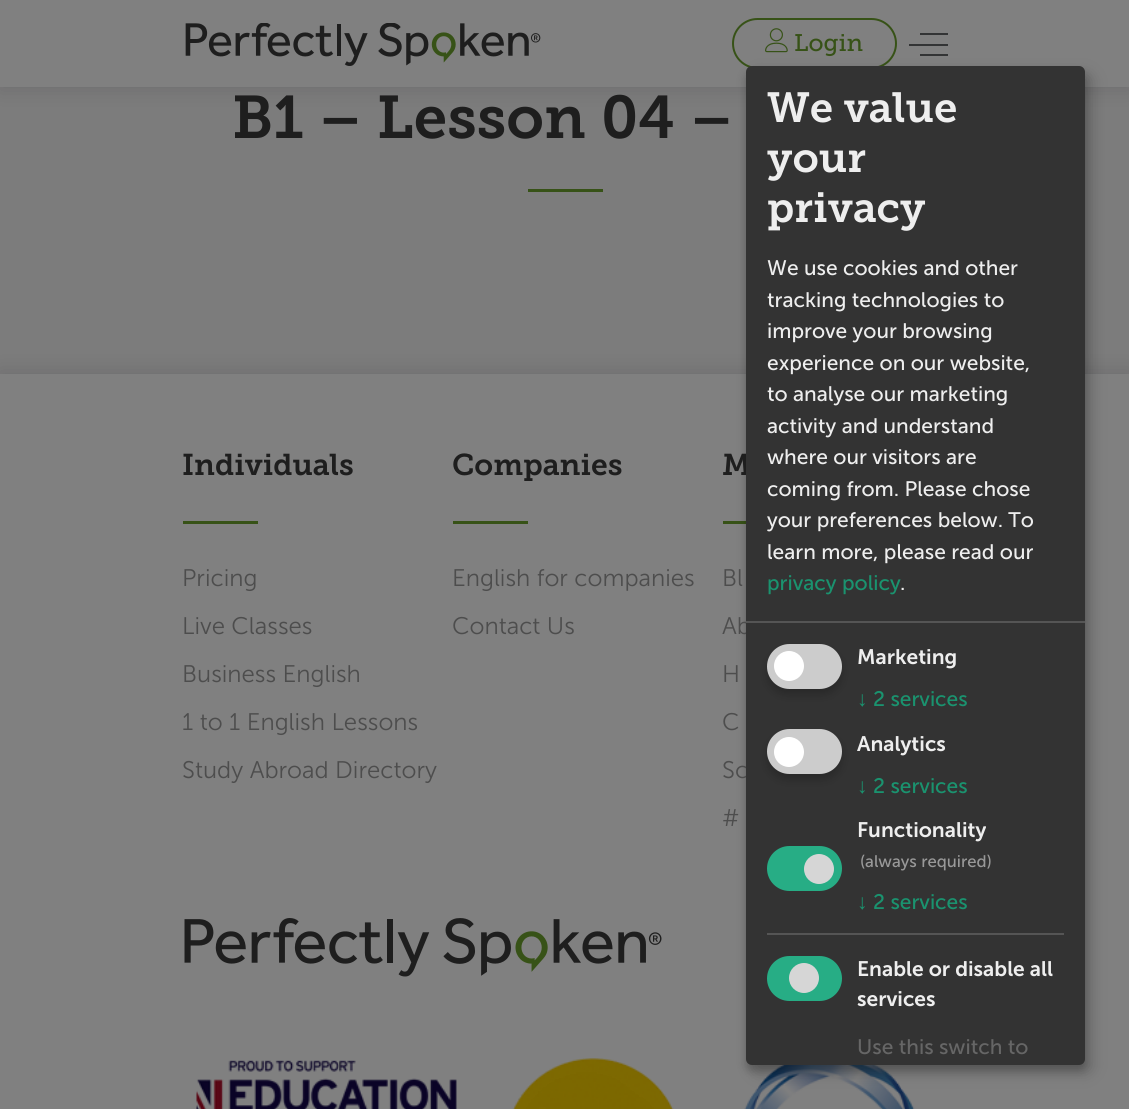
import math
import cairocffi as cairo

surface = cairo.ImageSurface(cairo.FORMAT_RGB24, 1129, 1109)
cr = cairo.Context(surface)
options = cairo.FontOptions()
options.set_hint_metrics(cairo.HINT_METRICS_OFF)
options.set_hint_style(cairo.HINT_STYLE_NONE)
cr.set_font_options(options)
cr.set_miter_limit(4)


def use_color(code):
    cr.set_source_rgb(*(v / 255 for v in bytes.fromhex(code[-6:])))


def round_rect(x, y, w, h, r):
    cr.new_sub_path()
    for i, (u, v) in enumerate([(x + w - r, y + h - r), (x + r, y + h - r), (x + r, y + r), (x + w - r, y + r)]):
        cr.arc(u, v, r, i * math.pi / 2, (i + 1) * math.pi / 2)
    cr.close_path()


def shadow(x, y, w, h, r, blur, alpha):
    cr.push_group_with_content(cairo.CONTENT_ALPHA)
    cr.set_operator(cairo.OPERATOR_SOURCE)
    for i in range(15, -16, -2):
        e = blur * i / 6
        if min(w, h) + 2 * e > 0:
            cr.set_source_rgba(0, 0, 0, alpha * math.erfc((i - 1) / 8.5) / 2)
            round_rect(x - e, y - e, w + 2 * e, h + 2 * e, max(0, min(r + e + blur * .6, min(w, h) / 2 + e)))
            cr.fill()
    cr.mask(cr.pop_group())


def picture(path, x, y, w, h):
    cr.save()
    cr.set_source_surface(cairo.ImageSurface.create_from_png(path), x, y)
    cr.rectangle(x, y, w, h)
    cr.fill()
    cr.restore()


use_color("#7c7c7c")
cr.paint()
use_color("#232127")
shadow(-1, 0, 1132, 90, 0, 11, 0.15)
use_color("#808080")
cr.rectangle(0, 0, 1129, 87)
cr.fill()
picture("img1.png", 185, 23, 356, 43)
round_rect(733, 19, 163, 49, 24.5)
use_color("#375217")
cr.stroke()
picture("img2.png", 765, 28, 23, 25)
cr.select_font_face("Museo Slab")
cr.set_font_size(24)
cr.move_to(794, 51)
cr.show_text("Login")
use_color("#333435")
cr.rectangle(909, 44, 39, 2)
cr.fill()
cr.rectangle(920, 33, 28, 2)
cr.fill()
cr.rectangle(920, 54, 28, 2)
cr.fill()
cr.select_font_face("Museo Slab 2")
cr.set_font_size(60)
use_color("#1e1e1e")
cr.move_to(232, 138)
cr.show_text("B1 – Lesson 04 –")
use_color("#375217")
cr.rectangle(528, 189, 75, 3)
cr.fill()
use_color("#232127")
shadow(-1, 371, 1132, 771, 0, 11, 0.15)
use_color("#808080")
cr.rectangle(0, 374, 1129, 735)
cr.fill()
use_color("#375217")
cr.rectangle(723, 521, 23, 3)
cr.fill()
picture("img4.png", 196, 1058, 719, 51)
use_color("#000000")
shadow(753, 74, 339, 999, 6, 7.5, 0.19)
shadow(746, 72, 339, 999, 6, 4.5, 0.2)
cr.set_font_size(30)
use_color("#1e1e1e")
cr.move_to(722, 475)
cr.show_text("M")
cr.select_font_face("Museo Sans Light")
cr.set_font_size(24)
use_color("#4d4d4d")
cr.move_to(722, 634)
cr.show_text("Ab")
cr.move_to(722, 778)
cr.show_text("Sc")
use_color("#333333")
round_rect(746, 66, 339, 999, 6)
cr.fill()
use_color("#555555")
cr.rectangle(746, 621, 339, 2)
cr.fill()
cr.select_font_face("Museo Slab 2")
cr.set_font_size(42)
use_color("#eeeeee")
cr.move_to(767, 122)
cr.show_text("We value")
cr.move_to(767, 172)
cr.show_text("your")
cr.move_to(767, 222)
cr.show_text("privacy")
cr.select_font_face("Museo Sans")
cr.set_font_size(21)
cr.move_to(767, 275)
cr.show_text("We use cookies and other")
cr.move_to(767, 307)
cr.show_text("tracking technologies to")
cr.move_to(767, 338)
cr.show_text("improve your browsing")
cr.move_to(767, 370)
cr.show_text("experience on our website,")
cr.move_to(767, 401)
cr.show_text("to analyse our marketing")
cr.move_to(767, 433)
cr.show_text("activity and understand")
cr.move_to(767, 464)
cr.show_text("where our visitors are")
cr.move_to(767, 496)
cr.show_text("coming from. Please chose")
cr.move_to(767, 527)
cr.show_text("your preferences below. To")
cr.move_to(767, 559)
cr.show_text("learn more, please read our")
use_color("#1a936f")
cr.move_to(767, 590)
cr.show_text("privacy policy")
use_color("#eeeeee")
cr.move_to(900, 590)
cr.show_text(".")
use_color("#000000")
shadow(767, 650, 75, 45, 22.5, 4.5, 0.2)
use_color("#cccccc")
round_rect(767, 644, 75, 45, 22.5)
cr.fill()
use_color("#ffffff")
cr.arc(789, 666, 15, 0, 2 * math.pi)
cr.fill()
cr.select_font_face("Museo Sans SemiBold")
use_color("#eeeeee")
cr.move_to(857, 664)
cr.show_text("Marketing")
cr.select_font_face("Liberation Sans")
use_color("#1a936f")
cr.move_to(857, 706)
cr.show_text("↓")
cr.select_font_face("Museo Sans")
cr.move_to(873, 706)
cr.show_text("2 services")
use_color("#000000")
shadow(767, 735, 75, 45, 22.5, 4.5, 0.2)
use_color("#cccccc")
round_rect(767, 729, 75, 45, 22.5)
cr.fill()
use_color("#ffffff")
cr.arc(789, 752, 15, 0, 2 * math.pi)
cr.fill()
cr.select_font_face("Museo Sans SemiBold")
use_color("#eeeeee")
cr.move_to(857, 751)
cr.show_text("Analytics")
cr.select_font_face("Liberation Sans")
use_color("#1a936f")
cr.move_to(857, 793)
cr.show_text("↓")
cr.select_font_face("Museo Sans")
cr.move_to(873, 793)
cr.show_text("2 services")
cr.select_font_face("Museo Sans SemiBold")
use_color("#eeeeee")
cr.move_to(857, 837)
cr.show_text("Functionality")
use_color("#27ad85")
round_rect(767, 846, 75, 45, 22.5)
cr.fill()
use_color("#d6d6d6")
cr.arc(819, 869, 15, 0, 2 * math.pi)
cr.fill()
cr.select_font_face("Museo Sans")
cr.set_font_size(16.75)
use_color("#999999")
cr.move_to(860, 867)
cr.show_text("(always required)")
cr.select_font_face("Liberation Sans")
cr.set_font_size(21)
use_color("#1a936f")
cr.move_to(857, 909)
cr.show_text("↓")
cr.select_font_face("Museo Sans")
cr.move_to(873, 909)
cr.show_text("2 services")
use_color("#555555")
cr.rectangle(767, 933, 297, 2)
cr.fill()
use_color("#27ad85")
round_rect(767, 956, 75, 45, 22.5)
cr.fill()
use_color("#d6d6d6")
cr.arc(804, 978, 15, 0, 2 * math.pi)
cr.fill()
cr.select_font_face("Museo Sans SemiBold")
use_color("#eeeeee")
cr.move_to(857, 976)
cr.show_text("Enable or disable all")
cr.move_to(857, 1006)
cr.show_text("services")
cr.select_font_face("Museo Sans")
use_color("#666666")
cr.move_to(857, 1054)
cr.show_text("Use this switch to")
cr.select_font_face("Museo Slab 2")
cr.set_font_size(30)
use_color("#1e1e1e")
cr.move_to(182, 475)
cr.show_text("Individuals")
use_color("#375217")
cr.rectangle(183, 521, 75, 3)
cr.fill()
cr.select_font_face("Museo Sans Light")
cr.set_font_size(24)
use_color("#4d4d4d")
cr.move_to(182, 586)
cr.show_text("Pricing")
cr.move_to(182, 634)
cr.show_text("Live Classes")
cr.move_to(182, 682)
cr.show_text("Business English")
cr.move_to(182, 730)
cr.show_text("1 to 1 English Lessons")
cr.move_to(182, 778)
cr.show_text("Study Abroad Directory")
cr.select_font_face("Museo Slab 2")
cr.set_font_size(30)
use_color("#1e1e1e")
cr.move_to(452, 475)
cr.show_text("Companies")
use_color("#375217")
cr.rectangle(453, 521, 75, 3)
cr.fill()
cr.select_font_face("Museo Sans Light")
cr.set_font_size(24)
use_color("#4d4d4d")
cr.move_to(452, 586)
cr.show_text("English for companies")
cr.move_to(452, 634)
cr.show_text("Contact Us")
cr.move_to(722, 586)
cr.show_text("Bl")
cr.move_to(722, 682)
cr.show_text("H")
cr.move_to(722, 730)
cr.show_text("C")
cr.move_to(722, 826)
cr.show_text("#")
picture("img3.png", 184, 918, 478, 59)
surface.write_to_png("result.png")
